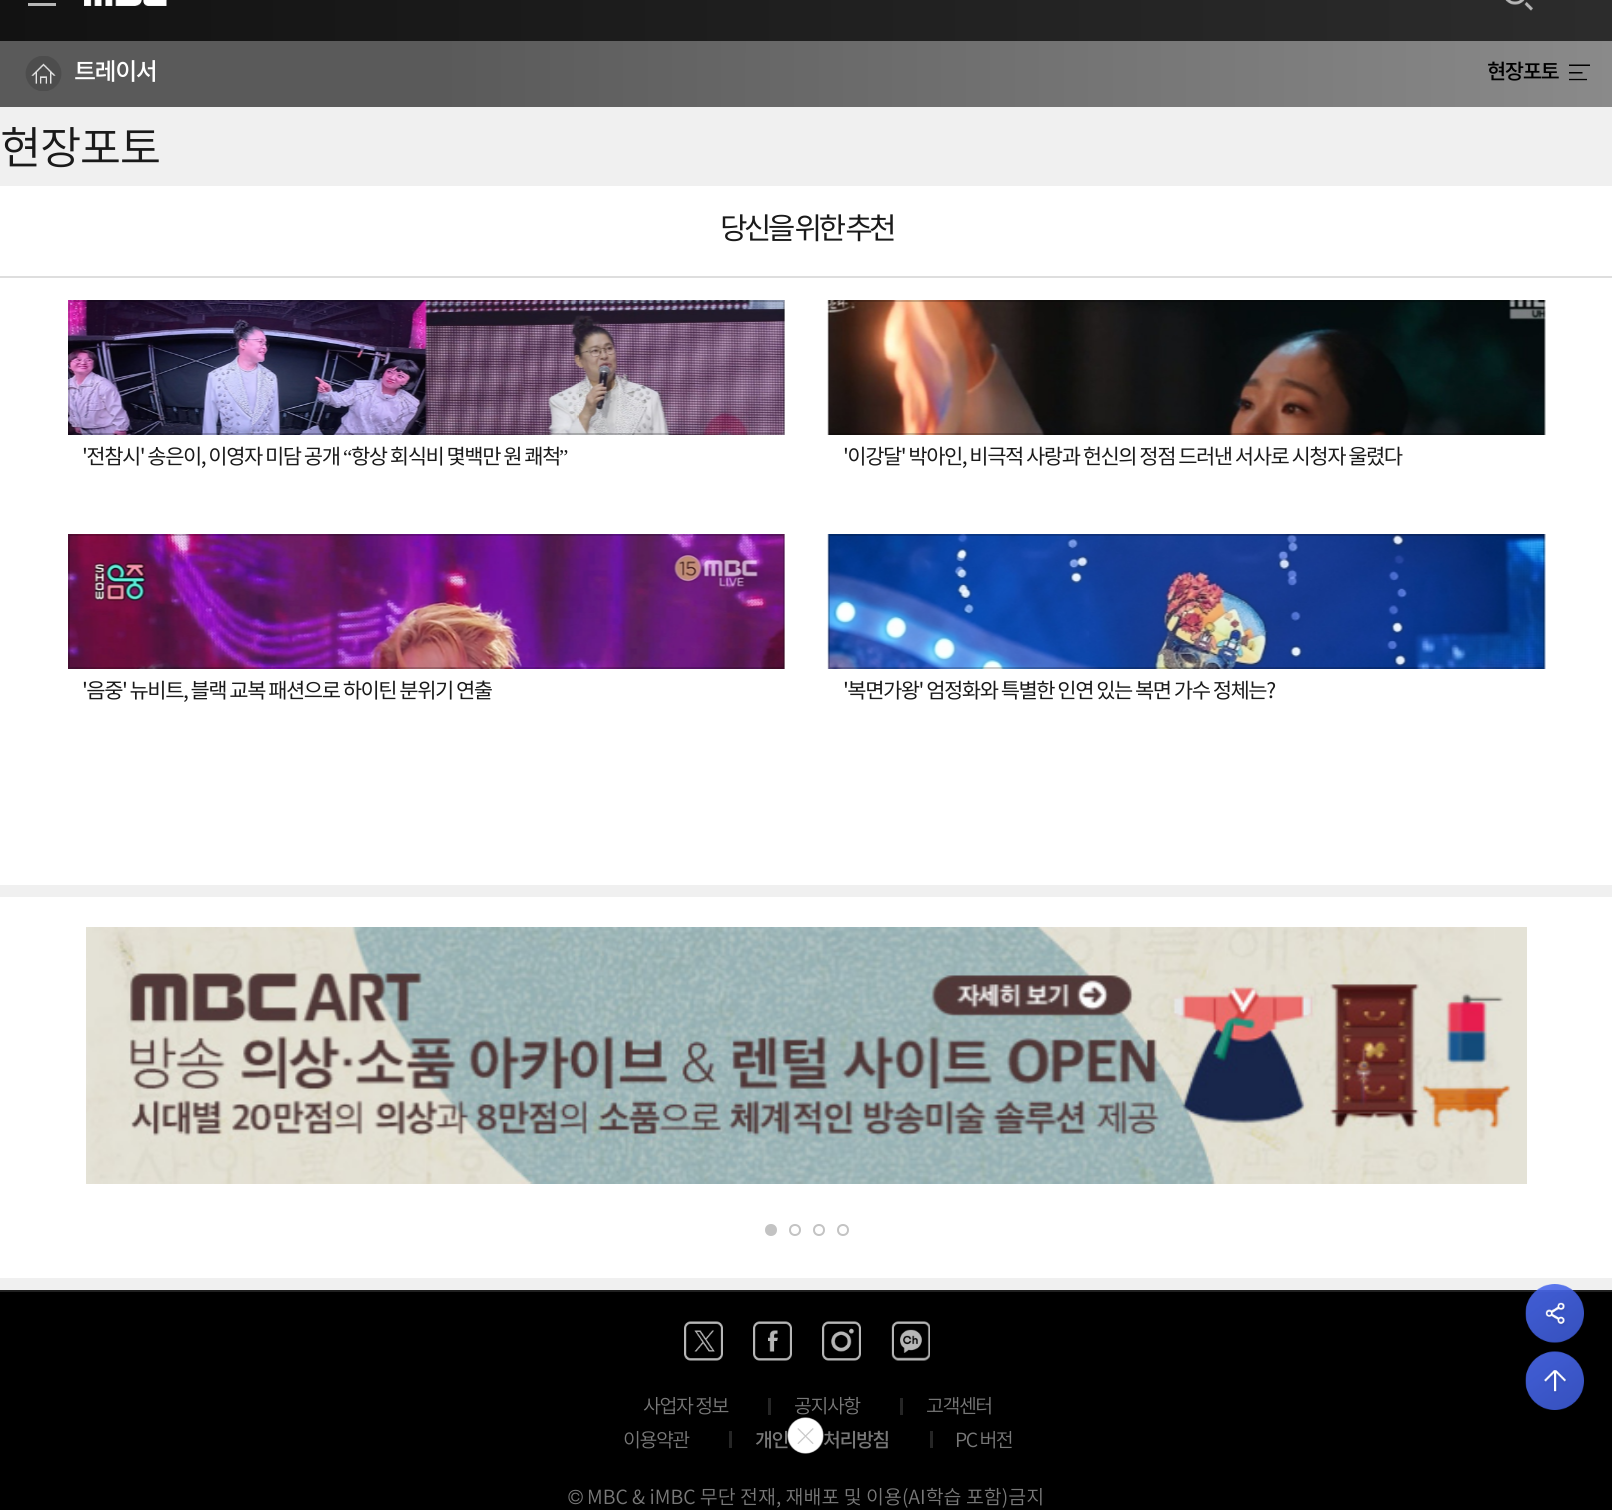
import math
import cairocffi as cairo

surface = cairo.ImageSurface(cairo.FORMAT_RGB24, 1612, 1510)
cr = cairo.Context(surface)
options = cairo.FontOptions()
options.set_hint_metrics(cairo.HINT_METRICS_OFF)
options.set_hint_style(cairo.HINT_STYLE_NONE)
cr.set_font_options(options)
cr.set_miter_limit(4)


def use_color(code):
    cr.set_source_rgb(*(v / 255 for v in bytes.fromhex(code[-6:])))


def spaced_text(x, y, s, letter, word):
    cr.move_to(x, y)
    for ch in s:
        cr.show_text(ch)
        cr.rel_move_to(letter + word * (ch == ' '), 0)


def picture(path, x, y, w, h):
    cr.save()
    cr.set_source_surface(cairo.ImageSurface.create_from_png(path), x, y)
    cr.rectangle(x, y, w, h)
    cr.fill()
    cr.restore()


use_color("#000000")
cr.paint()
use_color("#f0f0f0")
cr.rectangle(0, 107, 1612, 1183)
cr.fill()
gradient = cairo.LinearGradient(0, -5.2, 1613, -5.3)
gradient.add_color_stop_rgba(0, 0.071, 0.071, 0.071, 1)
gradient.add_color_stop_rgba(1, 0.173, 0.173, 0.173, 1)
cr.set_source(gradient)
cr.rectangle(0, 0, 1612, 41)
cr.fill()
use_color("#b7b7b7")
cr.rectangle(28, 3, 28, 3)
cr.fill()
picture("img1.png", 84, 0, 83, 6)
picture("img2.png", 1505, 0, 28, 11)
use_color("#5a5a5a")
cr.rectangle(0, 41, 440, 66)
cr.fill()
picture("img3.png", 25, 56, 37, 35)
cr.select_font_face("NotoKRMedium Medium")
cr.set_font_size(24)
use_color("#ffffff")
spaced_text(74, 80, "트레이서", -1.5, 0)
gradient = cairo.LinearGradient(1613, 74, 440, 73)
gradient.add_color_stop_rgba(0, 0.541, 0.541, 0.541, 1)
gradient.add_color_stop_rgba(1, 0.353, 0.353, 0.353, 1)
cr.set_source(gradient)
cr.rectangle(440, 41, 1172, 66)
cr.fill()
cr.set_font_size(21)
use_color("#000000")
spaced_text(1487, 79, "현장포토", -1.5, 0)
picture("img4.png", 1569, 64, 21, 17)
cr.select_font_face("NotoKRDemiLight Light")
cr.set_font_size(45)
use_color("#1a1a1a")
spaced_text(0, 164, "현장포토", -1.5, 0)
use_color("#ffffff")
cr.rectangle(0, 186, 1612, 699)
cr.fill()
use_color("#dedede")
cr.rectangle(0, 276, 1612, 2)
cr.fill()
cr.select_font_face("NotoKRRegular")
cr.set_font_size(30)
use_color("#1a1a1a")
spaced_text(720, 239, "당신을 위한 추천", -3.75, 0)
picture("img5.png", 68, 300, 717, 135)
cr.rectangle(69, 301, 715, 133)
cr.set_source_rgba(0, 0, 0, 0.2)
cr.stroke()
cr.set_font_size(21)
use_color("#1a1a1a")
spaced_text(82, 464, "'전참시' 송은이, 이영자 미담 공개", -1.5, 0)
cr.select_font_face("Liberation Serif")
spaced_text(343, 464, "“", -1.5, 0)
cr.select_font_face("NotoKRRegular")
spaced_text(351, 464, "항상 회식비 몇백만 원 쾌척", -1.5, 0)
cr.select_font_face("Liberation Serif")
spaced_text(559, 464, "”", -1.5, 0)
picture("img6.png", 827, 300, 719, 135)
cr.rectangle(829, 301, 715, 133)
cr.set_source_rgba(0, 0, 0, 0.2)
cr.stroke()
cr.select_font_face("NotoKRRegular")
use_color("#1a1a1a")
spaced_text(843, 464, "'이강달' 박아인, 비극적 사랑과 헌신의 정점 드러낸 서사로 시청자 울렸다", -1.5, 0)
picture("img7.png", 68, 534, 717, 135)
cr.rectangle(69, 535, 715, 133)
cr.set_source_rgba(0, 0, 0, 0.2)
cr.stroke()
use_color("#1a1a1a")
spaced_text(82, 698, "'음중' 뉴비트, 블랙 교복 패션으로 하이틴 분위기 연출", -1.5, 0)
picture("img8.png", 827, 534, 719, 135)
cr.rectangle(829, 535, 715, 133)
cr.set_source_rgba(0, 0, 0, 0.2)
cr.stroke()
use_color("#1a1a1a")
spaced_text(843, 698, "'복면가왕' 엄정화와 특별한 인연 있는 복면 가수 정체는?", -1.5, 0)
use_color("#ffffff")
cr.rectangle(0, 897, 1612, 381)
cr.fill()
picture("img9.png", 86, 927, 1441, 257)
use_color("#c3c3c3")
cr.arc(771, 1230, 5, 0, 2 * math.pi)
cr.fill_preserve()
cr.stroke()
cr.arc(795, 1230, 5, 0, 2 * math.pi)
cr.stroke()
cr.arc(819, 1230, 5, 0, 2 * math.pi)
cr.stroke()
cr.arc(843, 1230, 5, 0, 2 * math.pi)
cr.stroke()
use_color("#202020")
cr.rectangle(0, 1290, 1612, 2)
cr.fill()
picture("img10.png", 1525, 1284, 59, 59)
picture("img11.png", 1525, 1351, 59, 59)
picture("img12.png", 787, 1417, 37, 37)
picture("img13.png", 684, 1321, 39, 40)
picture("img14.png", 753, 1321, 39, 40)
picture("img15.png", 822, 1321, 39, 40)
picture("img16.png", 891, 1321, 39, 40)
use_color("#252525")
cr.rectangle(768, 1398, 3, 17)
cr.fill()
cr.select_font_face("NotoKRDemiLight Light")
cr.set_font_size(19.5)
use_color("#787878")
spaced_text(643, 1413, "사업자 정보", -1.5, 0)
use_color("#252525")
cr.rectangle(900, 1398, 3, 17)
cr.fill()
use_color("#787878")
spaced_text(794, 1413, "공지사항", -1.5, 0)
spaced_text(926, 1413, "고객센터", -1.5, 0)
use_color("#252525")
cr.rectangle(729, 1431, 3, 17)
cr.fill()
use_color("#787878")
spaced_text(623, 1447, "이용약관", -1.5, 0)
use_color("#252525")
cr.rectangle(930, 1431, 3, 17)
cr.fill()
cr.select_font_face("NotoKRMedium Medium")
use_color("#787878")
spaced_text(755, 1447, "개인", -1.5, 0)
spaced_text(823, 1447, "처리방침", -1.5, 0)
cr.select_font_face("NotoKRDemiLight Light")
spaced_text(955, 1447, "PC 버전", -1.5, 0)
cr.select_font_face("Dotum")
cr.move_to(568, 1504)
cr.show_text("©")
cr.select_font_face("NotoKRDemiLight Light")
cr.move_to(587, 1504)
cr.show_text("MBC & iMBC 무단 전재, 재배포 및 이용(AI학습 포함)금지")
surface.write_to_png("result.png")
